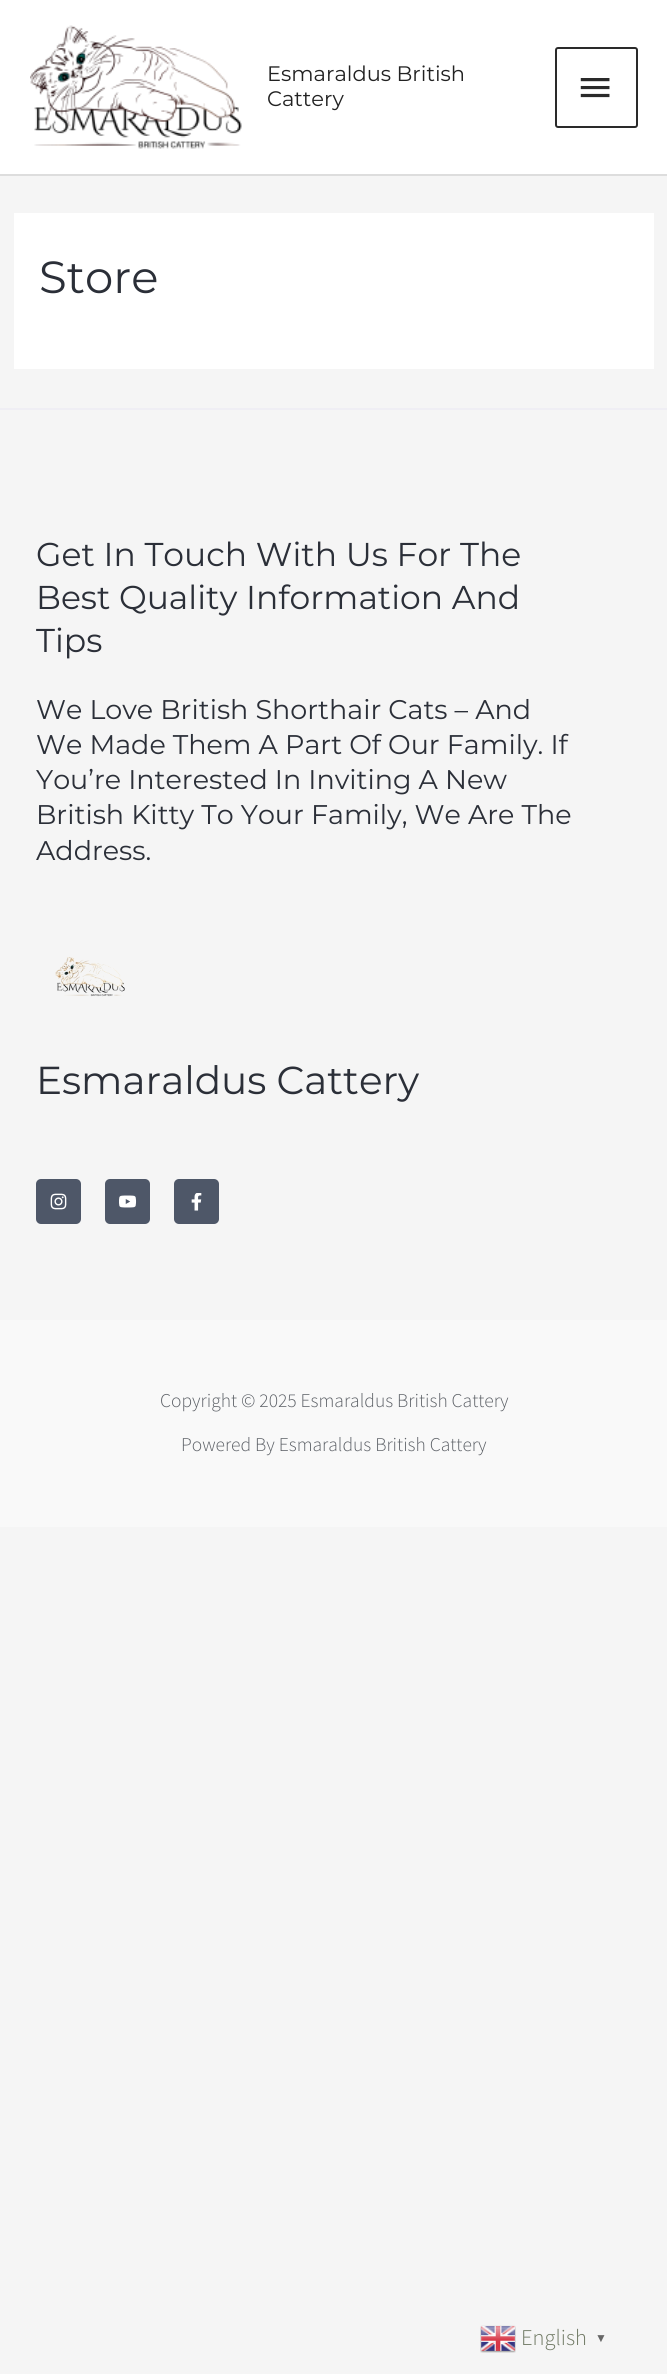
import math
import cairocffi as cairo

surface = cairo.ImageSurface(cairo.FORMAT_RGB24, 667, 2374)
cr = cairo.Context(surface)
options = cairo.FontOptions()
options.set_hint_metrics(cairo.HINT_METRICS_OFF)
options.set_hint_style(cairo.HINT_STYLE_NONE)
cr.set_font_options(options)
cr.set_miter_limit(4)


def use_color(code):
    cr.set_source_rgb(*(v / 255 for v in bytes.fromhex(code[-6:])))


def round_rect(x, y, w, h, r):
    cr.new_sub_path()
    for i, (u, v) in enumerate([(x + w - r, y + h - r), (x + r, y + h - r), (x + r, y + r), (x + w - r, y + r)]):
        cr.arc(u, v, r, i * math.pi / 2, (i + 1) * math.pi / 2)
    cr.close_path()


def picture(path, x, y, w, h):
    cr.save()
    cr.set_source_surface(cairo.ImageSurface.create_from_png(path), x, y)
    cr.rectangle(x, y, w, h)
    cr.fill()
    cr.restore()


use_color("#f5f5f5")
cr.paint()
use_color("#ffffff")
cr.rectangle(0, 0, 667, 174)
cr.fill()
use_color("#dddddd")
cr.rectangle(0, 174, 667, 2)
cr.fill()
picture("img1.png", 30, 25, 212, 124)
cr.select_font_face("Montserrat")
cr.set_font_size(21)
use_color("#222222")
cr.move_to(267, 81)
cr.show_text("Esmaraldus British")
cr.move_to(267, 106)
cr.show_text("Cattery")
round_rect(556, 48, 81, 79, 2)
use_color("#2a2a2a")
cr.stroke()
picture("img2.png", 580, 78, 30, 20)
use_color("#ffffff")
cr.rectangle(14, 213, 640, 156)
cr.fill()
cr.set_font_size(45)
use_color("#2b2f38")
cr.move_to(39, 293)
cr.show_text("Store")
use_color("#efeef4")
cr.rectangle(0, 408, 667, 2)
cr.fill()
cr.set_font_size(33)
use_color("#2b2f38")
cr.move_to(36, 566)
cr.show_text("Get In Touch With Us For The")
cr.move_to(36, 609)
cr.show_text("Best Quality Information And")
cr.move_to(36, 652)
cr.show_text("Tips")
cr.set_font_size(27)
cr.move_to(36, 719)
cr.show_text("We Love British Shorthair Cats – And")
cr.move_to(36, 754)
cr.show_text("We Made Them A Part Of Our Family. If")
cr.move_to(36, 789)
cr.show_text("You’re Interested In Inviting A New")
cr.move_to(36, 824)
cr.show_text("British Kitty To Your Family, We Are The")
cr.move_to(36, 860)
cr.show_text("Address.")
picture("img3.png", 55, 957, 70, 40)
cr.set_font_size(39)
cr.move_to(36, 1094)
cr.show_text("Esmaraldus Cattery")
use_color("#4e5768")
round_rect(36, 1179, 45, 45, 5)
cr.fill()
picture("img4.png", 50, 1193, 17, 17)
round_rect(105, 1179, 45, 45, 5)
cr.fill()
picture("img5.png", 119, 1195, 18, 13)
round_rect(174, 1179, 45, 45, 5)
cr.fill()
picture("img6.png", 191, 1193, 11, 18)
use_color("#f9f9f9")
cr.rectangle(0, 1320, 667, 207)
cr.fill()
cr.select_font_face("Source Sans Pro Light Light")
cr.set_font_size(19.5)
use_color("#5d6167")
cr.move_to(160, 1407)
cr.show_text("Copyright © 2025 Esmaraldus British Cattery")
cr.move_to(181, 1451)
cr.show_text("Powered By Esmaraldus British Cattery")
picture("img7.png", 480, 2325, 36, 28)
cr.set_font_size(22.5)
use_color("#707964")
cr.move_to(521, 2345)
cr.show_text("English")
cr.select_font_face("Liberation Sans", cairo.FONT_SLANT_NORMAL, cairo.FONT_WEIGHT_BOLD)
cr.set_font_size(12)
use_color("#666666")
cr.move_to(595, 2342)
cr.show_text("▼")
surface.write_to_png("result.png")
